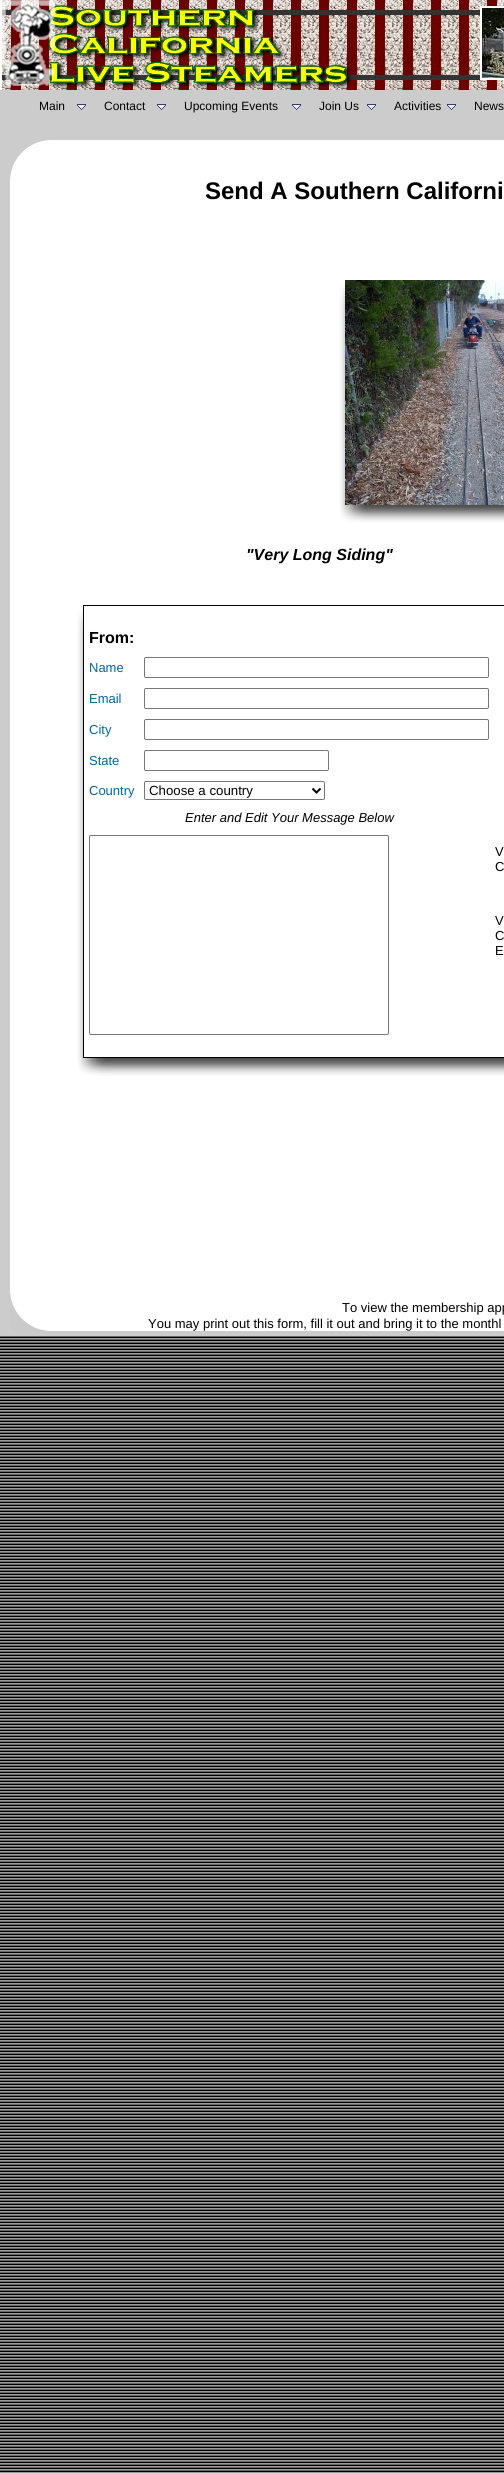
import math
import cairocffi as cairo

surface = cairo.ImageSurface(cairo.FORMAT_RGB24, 504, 2473)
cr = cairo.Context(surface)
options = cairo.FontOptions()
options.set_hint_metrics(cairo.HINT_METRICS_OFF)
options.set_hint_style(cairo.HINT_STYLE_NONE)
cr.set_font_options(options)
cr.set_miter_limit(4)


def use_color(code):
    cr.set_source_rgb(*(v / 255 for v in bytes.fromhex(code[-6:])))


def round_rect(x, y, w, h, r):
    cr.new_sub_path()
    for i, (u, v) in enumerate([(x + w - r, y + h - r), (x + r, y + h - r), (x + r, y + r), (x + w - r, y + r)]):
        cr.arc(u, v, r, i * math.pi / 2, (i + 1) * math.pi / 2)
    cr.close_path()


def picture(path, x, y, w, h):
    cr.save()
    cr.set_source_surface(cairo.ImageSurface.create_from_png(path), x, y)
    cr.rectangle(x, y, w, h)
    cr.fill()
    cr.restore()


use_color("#ffffff")
cr.paint()
picture("img1.png", 0, 1336, 504, 1137)
picture("img2.png", 0, 0, 366, 90)
picture("img3.png", 366, 0, 138, 90)
cr.rectangle(481, 7, 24, 72)
use_color("#ffffff")
cr.stroke()
picture("img4.png", 482, 8, 22, 70)
use_color("#cccccc")
cr.rectangle(0, 90, 504, 50)
cr.fill()
cr.select_font_face("Liberation Sans")
cr.set_font_size(12)
use_color("#000000")
cr.move_to(39, 110)
cr.show_text("Main")
picture("img5.png", 77, 104, 9, 6)
cr.move_to(104, 110)
cr.show_text("Contact")
picture("img5.png", 157, 104, 9, 6)
cr.move_to(184, 110)
cr.show_text("Upcoming Events")
picture("img5.png", 292, 104, 9, 6)
cr.move_to(319, 110)
cr.show_text("Join Us")
picture("img5.png", 367, 104, 9, 6)
cr.move_to(394, 110)
cr.show_text("Activities")
picture("img5.png", 447, 104, 9, 6)
cr.move_to(474, 110)
cr.show_text("News")
use_color("#cccccc")
cr.rectangle(0, 1331, 504, 5)
cr.fill()
cr.rectangle(0, 140, 10, 1191)
cr.fill()
picture("img6.png", 10, 1292, 38, 39)
picture("img7.png", 10, 140, 39, 38)
cr.select_font_face("Liberation Sans", cairo.FONT_SLANT_NORMAL, cairo.FONT_WEIGHT_BOLD)
cr.set_font_size(24)
use_color("#000000")
cr.move_to(205, 199)
cr.show_text("Send A Southern Californi")
picture("img8.png", 339, 283, 6, 222)
picture("img9.png", 345, 280, 159, 225)
picture("img10.png", 340, 505, 5, 14)
picture("img11.png", 345, 505, 159, 18)
cr.select_font_face("Liberation Sans", cairo.FONT_SLANT_ITALIC, cairo.FONT_WEIGHT_BOLD)
cr.set_font_size(16)
cr.move_to(246, 560)
cr.show_text("\"Very Long Siding\"")
picture("img12.png", 77, 608, 6, 450)
cr.rectangle(83, 605, 421, 453)
cr.fill()
use_color("#ffffff")
cr.rectangle(84, 606, 420, 451)
cr.fill()
cr.select_font_face("Liberation Sans", cairo.FONT_SLANT_NORMAL, cairo.FONT_WEIGHT_BOLD)
use_color("#000000")
cr.move_to(89, 643)
cr.show_text("From:")
cr.select_font_face("Liberation Sans")
cr.set_font_size(13)
use_color("#006699")
cr.move_to(89, 672)
cr.show_text("Name")
round_rect(144.5, 657.5, 344, 20, 1.5)
use_color("#767676")
cr.set_line_width(1)
cr.stroke()
use_color("#006699")
cr.move_to(89, 703)
cr.show_text("Email")
round_rect(144.5, 688.5, 344, 20, 1.5)
use_color("#767676")
cr.stroke()
use_color("#006699")
cr.move_to(89, 734)
cr.show_text("City")
round_rect(144.5, 719.5, 344, 20, 1.5)
use_color("#767676")
cr.stroke()
use_color("#006699")
cr.move_to(89, 765)
cr.show_text("State")
round_rect(144.5, 750.5, 184, 20, 1.5)
use_color("#767676")
cr.stroke()
use_color("#006699")
cr.move_to(89, 795)
cr.show_text("Country")
round_rect(144.5, 781.5, 180, 18, 1.5)
use_color("#767676")
cr.stroke()
cr.new_path()
cr.move_to(312.5, 788.5)
cr.line_to(316.5, 792.5)
cr.line_to(320.5, 788.5)
use_color("#000000")
cr.set_line_width(2)
cr.stroke()
cr.set_font_size(13.25)
cr.move_to(149, 795)
cr.show_text("Choose a country")
cr.select_font_face("Liberation Sans", cairo.FONT_SLANT_ITALIC)
cr.set_font_size(13)
cr.move_to(185, 822)
cr.show_text("Enter and Edit Your Message Below")
round_rect(89.5, 835.5, 299, 199, 1.5)
use_color("#767676")
cr.set_line_width(1)
cr.stroke()
cr.select_font_face("Liberation Sans")
use_color("#000000")
cr.move_to(495, 856)
cr.show_text("V")
cr.move_to(495, 871)
cr.show_text("C")
cr.move_to(495, 925)
cr.show_text("V")
cr.move_to(495, 940)
cr.show_text("C")
cr.move_to(495, 955)
cr.show_text("E")
picture("img10.png", 78, 1058, 5, 14)
picture("img13.png", 83, 1058, 421, 18)
cr.move_to(342, 1312)
cr.show_text("To view the membership app")
cr.move_to(148, 1328)
cr.show_text("You may print out this form, fill it out and bring it to the monthl")
surface.write_to_png("result.png")
